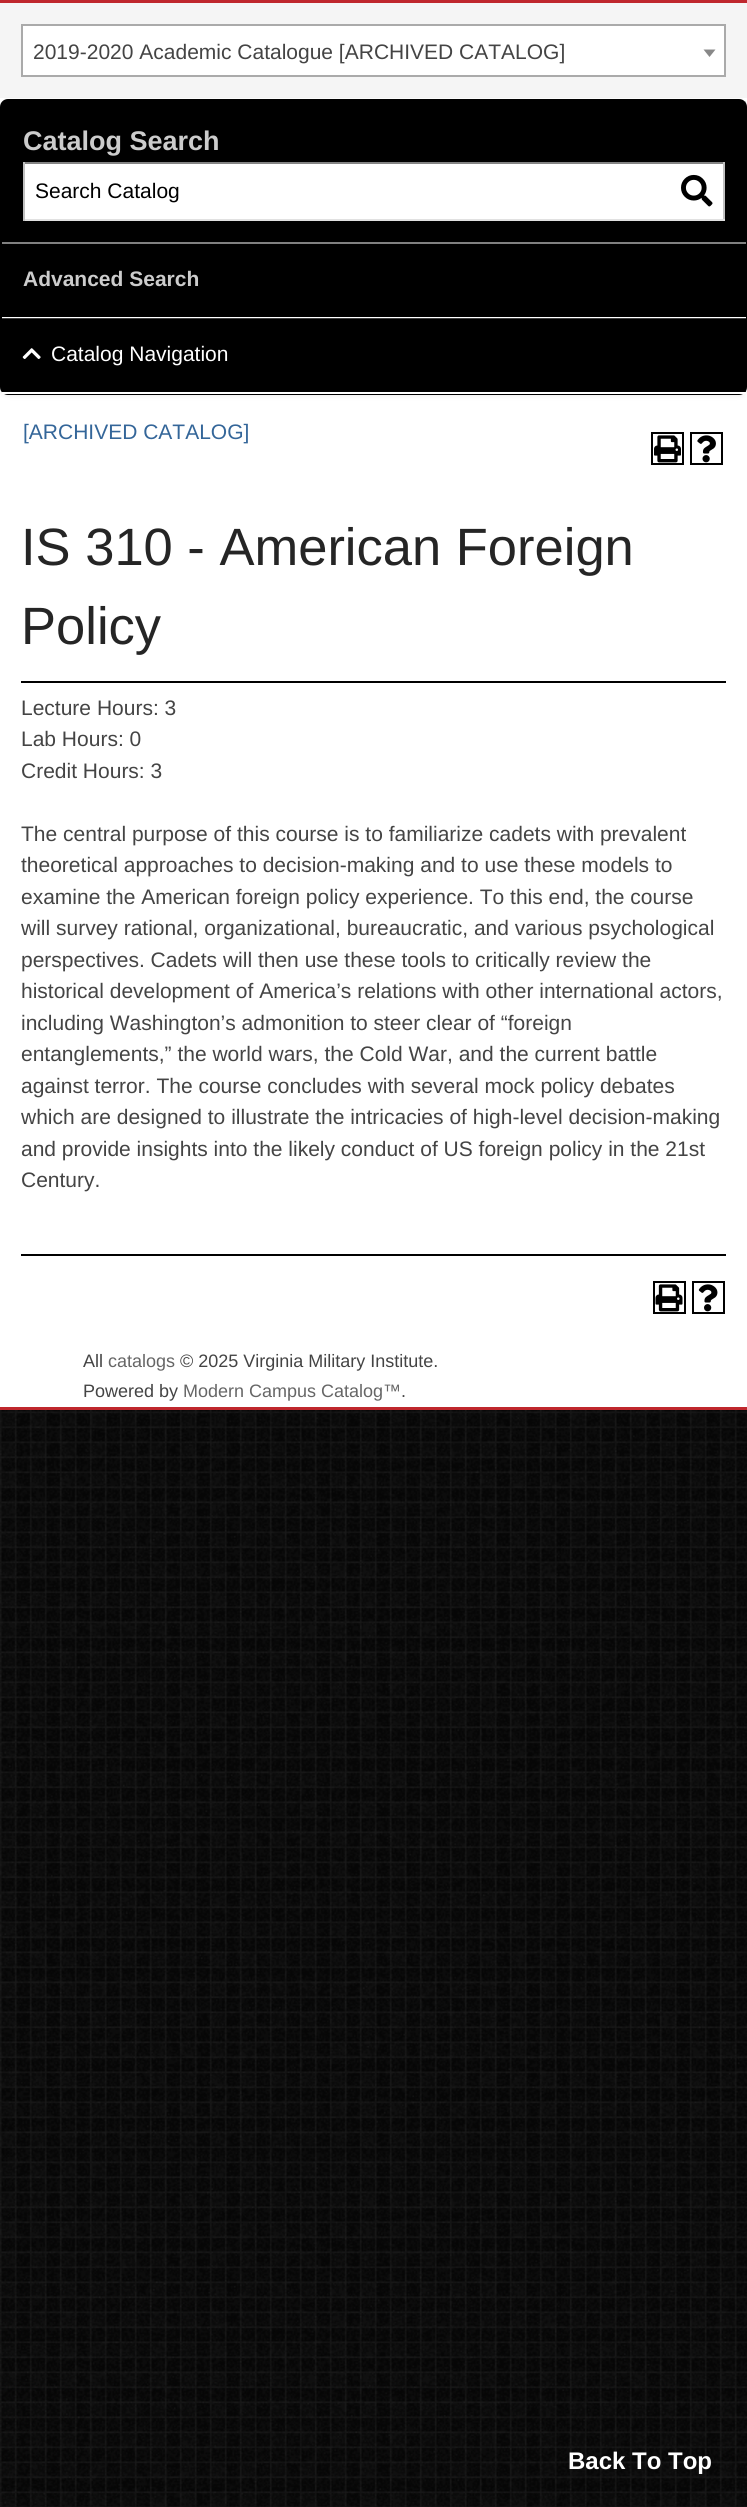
import math
import cairocffi as cairo

surface = cairo.ImageSurface(cairo.FORMAT_RGB24, 747, 2507)
cr = cairo.Context(surface)
options = cairo.FontOptions()
options.set_hint_metrics(cairo.HINT_METRICS_OFF)
options.set_hint_style(cairo.HINT_STYLE_NONE)
cr.set_font_options(options)
cr.set_miter_limit(4)


def use_color(code):
    cr.set_source_rgb(*(v / 255 for v in bytes.fromhex(code[-6:])))


def round_rect(x, y, w, h, r):
    cr.new_sub_path()
    for i, (u, v) in enumerate([(x + w - r, y + h - r), (x + r, y + h - r), (x + r, y + r), (x + w - r, y + r)]):
        cr.arc(u, v, r, i * math.pi / 2, (i + 1) * math.pi / 2)
    cr.close_path()


def shadow(x, y, w, h, r, blur, alpha):
    cr.push_group_with_content(cairo.CONTENT_ALPHA)
    cr.set_operator(cairo.OPERATOR_SOURCE)
    for i in range(15, -16, -2):
        e = blur * i / 6
        if min(w, h) + 2 * e > 0:
            cr.set_source_rgba(0, 0, 0, alpha * math.erfc((i - 1) / 8.5) / 2)
            round_rect(x - e, y - e, w + 2 * e, h + 2 * e, max(0, min(r + e + blur * .6, min(w, h) / 2 + e)))
            cr.fill()
    cr.mask(cr.pop_group())


def picture(path, x, y, w, h):
    cr.save()
    cr.set_source_surface(cairo.ImageSurface.create_from_png(path), x, y)
    cr.rectangle(x, y, w, h)
    cr.fill()
    cr.restore()


use_color("#060606")
cr.paint()
picture("img1.png", 0, 1410, 747, 1097)
use_color("#ffffff")
cr.rectangle(0, 98, 747, 1309)
cr.fill()
use_color("#bf272d")
cr.rectangle(0, 0, 747, 3)
cr.fill()
cr.rectangle(0, 1407, 747, 3)
cr.fill()
use_color("#f5f5f5")
cr.rectangle(0, 3, 747, 95)
cr.fill()
use_color("#ffffff")
cr.rectangle(22, 25, 703, 51)
cr.fill_preserve()
use_color("#aaaaaa")
cr.stroke()
cr.select_font_face("Liberation Sans")
cr.set_font_size(21)
use_color("#444444")
cr.move_to(33, 59)
cr.show_text("2019-2020 Academic Catalogue [ARCHIVED CATALOG]")
use_color("#888888")
cr.new_path()
cr.move_to(703.5, 49.5)
cr.line_to(715.5, 49.5)
cr.line_to(709.5, 57)
cr.close_path()
cr.fill()
use_color("#000000")
shadow(0, 101, 747, 295, 8, 3, 0.07)
use_color("#000000")
round_rect(1, 100, 745, 294, 7)
cr.fill_preserve()
cr.stroke()
cr.set_source_rgba(0, 0, 0, 0.15)
cr.rectangle(745, 101, 1, 2)
cr.fill()
use_color("#ffffff")
cr.rectangle(2, 317, 744, 2)
cr.fill()
cr.select_font_face("Liberation Sans", cairo.FONT_SLANT_NORMAL, cairo.FONT_WEIGHT_BOLD)
cr.set_font_size(27)
use_color("#cccccc")
cr.move_to(23, 150)
cr.show_text("Catalog Search")
use_color("#ffffff")
cr.rectangle(25, 164, 698, 55)
cr.fill()
use_color("#848484")
cr.rectangle(23, 162, 702, 2)
cr.fill()
use_color("#c1c1c1")
cr.rectangle(723, 162, 2, 59)
cr.fill()
use_color("#e1e1e1")
cr.rectangle(23, 219, 702, 2)
cr.fill()
use_color("#c1c1c1")
cr.rectangle(23, 162, 2, 59)
cr.fill()
cr.select_font_face("Liberation Sans")
cr.set_font_size(21)
use_color("#000000")
cr.move_to(35, 198)
cr.show_text("Search Catalog")
picture("img2.png", 681, 174, 32, 33)
use_color("#808080")
cr.rectangle(2, 242, 744, 2)
cr.fill()
cr.select_font_face("Liberation Sans", cairo.FONT_SLANT_NORMAL, cairo.FONT_WEIGHT_BOLD)
use_color("#cccccc")
cr.move_to(23, 286)
cr.show_text("Advanced Search")
cr.set_source_rgba(0, 0, 0, 0.75)
cr.rectangle(2, 318, 744, 74)
cr.fill()
use_color("#ffffff")
cr.rectangle(2, 392, 744, 2)
cr.fill()
picture("img3.png", 22, 348, 19, 11)
cr.select_font_face("Liberation Sans")
cr.move_to(51, 361)
cr.show_text("Catalog Navigation")
use_color("#346699")
cr.move_to(23, 439)
cr.show_text("[ARCHIVED CATALOG]")
cr.rectangle(652, 433, 31, 31)
use_color("#000000")
cr.stroke()
picture("img4.png", 654, 435, 27, 28)
cr.rectangle(691, 433, 31, 31)
cr.stroke()
picture("img5.png", 697, 435, 19, 28)
cr.set_font_size(52.5)
use_color("#252525")
cr.move_to(21, 565)
cr.show_text("IS 310 - American Foreign")
cr.move_to(21, 644)
cr.show_text("Policy")
use_color("#000000")
cr.rectangle(21, 681, 705, 2)
cr.fill()
cr.set_font_size(21)
use_color("#444444")
cr.move_to(21, 715)
cr.show_text("Lecture Hours: 3")
cr.move_to(21, 746)
cr.show_text("Lab Hours: 0")
cr.move_to(21, 778)
cr.show_text("Credit Hours: 3")
cr.move_to(21, 841)
cr.show_text("The central purpose of this course is to familiarize cadets with prevalent")
cr.move_to(21, 872)
cr.show_text("theoretical approaches to decision-making and to use these models to")
cr.move_to(21, 904)
cr.show_text("examine the American foreign policy experience. To this end, the course")
cr.move_to(21, 935)
cr.show_text("will survey rational, organizational, bureaucratic, and various psychological")
cr.move_to(21, 967)
cr.show_text("perspectives. Cadets will then use these tools to critically review the")
cr.move_to(21, 998)
cr.show_text("historical development of America’s relations with other international actors,")
cr.move_to(21, 1030)
cr.show_text("including Washington’s admonition to steer clear of “foreign")
cr.move_to(21, 1061)
cr.show_text("entanglements,” the world wars, the Cold War, and the current battle")
cr.move_to(21, 1093)
cr.show_text("against terror. The course concludes with several mock policy debates")
cr.move_to(21, 1124)
cr.show_text("which are designed to illustrate the intricacies of high-level decision-making")
cr.move_to(21, 1156)
cr.show_text("and provide insights into the likely conduct of US foreign policy in the 21st")
cr.move_to(21, 1187)
cr.show_text("Century.")
use_color("#000000")
cr.rectangle(21, 1254, 705, 2)
cr.fill()
cr.rectangle(654, 1282, 31, 31)
cr.stroke()
picture("img6.png", 655, 1284, 28, 28)
cr.rectangle(693, 1282, 31, 31)
cr.stroke()
picture("img7.png", 698, 1284, 20, 28)
cr.set_font_size(18)
use_color("#444444")
cr.move_to(83, 1367)
cr.show_text("All")
use_color("#666666")
cr.move_to(108, 1367)
cr.show_text("catalogs")
use_color("#444444")
cr.move_to(180, 1367)
cr.show_text("© 2025 Virginia Military Institute.")
cr.move_to(83, 1397)
cr.show_text("Powered by")
use_color("#666666")
cr.move_to(183, 1397)
cr.show_text("Modern Campus Catalog™")
use_color("#444444")
cr.move_to(401, 1397)
cr.show_text(".")
cr.select_font_face("Liberation Sans", cairo.FONT_SLANT_NORMAL, cairo.FONT_WEIGHT_BOLD)
cr.set_font_size(24)
use_color("#ffffff")
cr.move_to(568, 2469)
cr.show_text("Back To Top")
surface.write_to_png("result.png")
